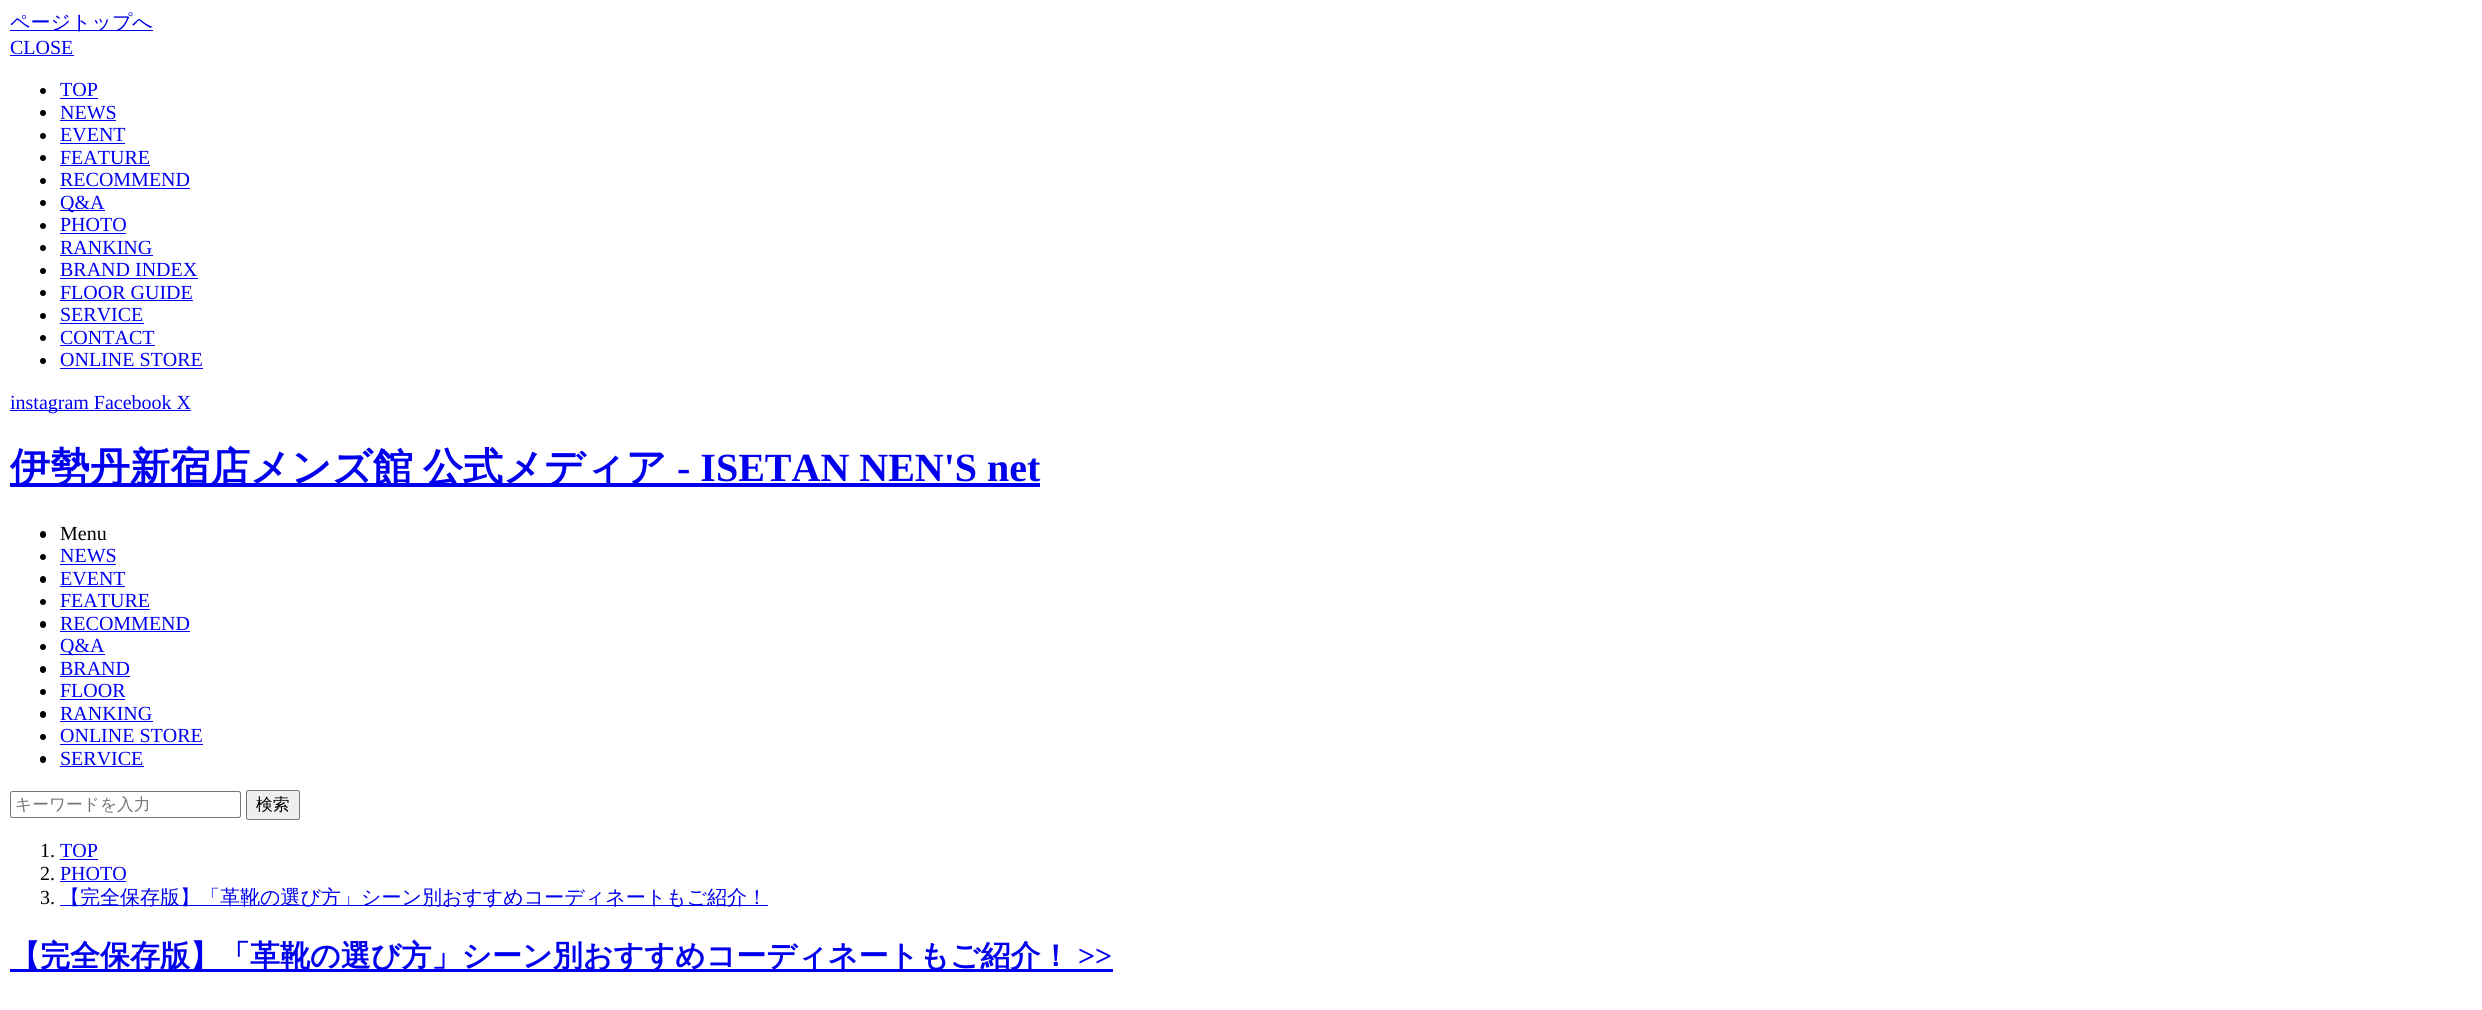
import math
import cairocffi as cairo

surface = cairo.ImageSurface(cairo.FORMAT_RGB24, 2482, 1010)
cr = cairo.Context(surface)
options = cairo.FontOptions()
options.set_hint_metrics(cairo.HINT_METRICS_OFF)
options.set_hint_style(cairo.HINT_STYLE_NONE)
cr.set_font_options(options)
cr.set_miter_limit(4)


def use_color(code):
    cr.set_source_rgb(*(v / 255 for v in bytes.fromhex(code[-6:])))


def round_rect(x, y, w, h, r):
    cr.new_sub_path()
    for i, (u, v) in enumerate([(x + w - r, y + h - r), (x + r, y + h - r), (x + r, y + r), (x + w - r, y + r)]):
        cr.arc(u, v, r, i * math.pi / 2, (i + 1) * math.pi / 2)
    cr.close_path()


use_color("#ffffff")
cr.paint()
use_color("#0000ee")
cr.rectangle(10, 30, 143, 1)
cr.fill()
cr.select_font_face("WenQuanYi Zen Hei Medium")
cr.set_font_size(20)
cr.move_to(10, 29)
cr.show_text("ページトップへ")
cr.select_font_face("Liberation Serif")
cr.move_to(10, 54)
cr.show_text("CLOSE")
cr.rectangle(10, 55, 64, 1)
cr.fill()
use_color("#000000")
cr.arc(43, 91, 3, 0, 2 * math.pi)
cr.fill()
use_color("#0000ee")
cr.move_to(60, 96)
cr.show_text("TOP")
cr.rectangle(60, 98, 38, 1)
cr.fill()
use_color("#000000")
cr.arc(43, 113, 3, 0, 2 * math.pi)
cr.fill()
use_color("#0000ee")
cr.move_to(60, 119)
cr.show_text("NEWS")
cr.rectangle(60, 120, 56, 1)
cr.fill()
use_color("#000000")
cr.arc(43, 136, 3, 0, 2 * math.pi)
cr.fill()
use_color("#0000ee")
cr.move_to(60, 141)
cr.show_text("EVENT")
cr.rectangle(60, 143, 65, 1)
cr.fill()
use_color("#000000")
cr.arc(43, 158, 3, 0, 2 * math.pi)
cr.fill()
use_color("#0000ee")
cr.move_to(60, 164)
cr.show_text("FEATURE")
cr.rectangle(60, 165, 90, 1)
cr.fill()
use_color("#000000")
cr.arc(43, 181, 3, 0, 2 * math.pi)
cr.fill()
use_color("#0000ee")
cr.move_to(60, 186)
cr.show_text("RECOMMEND")
cr.rectangle(60, 188, 130, 1)
cr.fill()
use_color("#000000")
cr.arc(43, 203, 3, 0, 2 * math.pi)
cr.fill()
use_color("#0000ee")
cr.rectangle(60, 210, 45, 1)
cr.fill()
cr.move_to(60, 209)
cr.show_text("Q&A")
use_color("#000000")
cr.new_path()
cr.arc(43, 226, 3, 0, 2 * math.pi)
cr.fill()
use_color("#0000ee")
cr.move_to(60, 231)
cr.show_text("PHOTO")
cr.rectangle(60, 233, 66, 1)
cr.fill()
use_color("#000000")
cr.arc(43, 248, 3, 0, 2 * math.pi)
cr.fill()
use_color("#0000ee")
cr.move_to(60, 254)
cr.show_text("RANKING")
cr.rectangle(60, 255, 93, 1)
cr.fill()
use_color("#000000")
cr.arc(43, 271, 3, 0, 2 * math.pi)
cr.fill()
use_color("#0000ee")
cr.move_to(60, 276)
cr.show_text("BRAND INDEX")
cr.rectangle(60, 278, 138, 1)
cr.fill()
use_color("#000000")
cr.arc(43, 293, 3, 0, 2 * math.pi)
cr.fill()
use_color("#0000ee")
cr.move_to(60, 299)
cr.show_text("FLOOR GUIDE")
cr.rectangle(60, 300, 133, 1)
cr.fill()
use_color("#000000")
cr.arc(43, 316, 3, 0, 2 * math.pi)
cr.fill()
use_color("#0000ee")
cr.move_to(60, 321)
cr.show_text("SERVICE")
cr.rectangle(60, 323, 84, 1)
cr.fill()
use_color("#000000")
cr.arc(43, 338, 3, 0, 2 * math.pi)
cr.fill()
use_color("#0000ee")
cr.move_to(60, 344)
cr.show_text("CONTACT")
cr.rectangle(60, 345, 95, 1)
cr.fill()
use_color("#000000")
cr.arc(43, 361, 3, 0, 2 * math.pi)
cr.fill()
use_color("#0000ee")
cr.move_to(60, 366)
cr.show_text("ONLINE STORE")
cr.rectangle(60, 368, 143, 1)
cr.fill()
cr.rectangle(10, 410, 161, 1)
cr.fill()
cr.move_to(10, 409)
cr.show_text("instagram Facebook X")
cr.rectangle(171, 410, 20, 1)
cr.fill()
cr.rectangle(10, 483, 1030, 4)
cr.fill()
cr.select_font_face("WenQuanYi Zen Hei", cairo.FONT_SLANT_NORMAL, cairo.FONT_WEIGHT_BOLD)
cr.set_font_size(40)
cr.move_to(10, 481)
cr.show_text("伊勢丹新宿店メンズ館")
cr.move_to(423, 481)
cr.show_text("公式メディア")
cr.select_font_face("Liberation Serif", cairo.FONT_SLANT_NORMAL, cairo.FONT_WEIGHT_BOLD)
cr.move_to(677, 481)
cr.show_text("- ISETAN NEN'S net")
use_color("#000000")
round_rect(40, 531, 6, 7, 3)
cr.fill()
cr.select_font_face("Liberation Serif")
cr.set_font_size(20)
cr.move_to(60, 540)
cr.show_text("Menu")
cr.new_path()
cr.arc(43, 557, 3, 0, 2 * math.pi)
cr.fill()
use_color("#0000ee")
cr.move_to(60, 562)
cr.show_text("NEWS")
cr.rectangle(60, 564, 56, 1)
cr.fill()
use_color("#000000")
round_rect(40, 576, 6, 7, 3)
cr.fill()
use_color("#0000ee")
cr.move_to(60, 585)
cr.show_text("EVENT")
cr.rectangle(60, 586, 65, 1)
cr.fill()
use_color("#000000")
cr.arc(43, 602, 3, 0, 2 * math.pi)
cr.fill()
use_color("#0000ee")
cr.move_to(60, 607)
cr.show_text("FEATURE")
cr.rectangle(60, 609, 90, 1)
cr.fill()
use_color("#000000")
round_rect(40, 621, 6, 7, 3)
cr.fill()
use_color("#0000ee")
cr.move_to(60, 630)
cr.show_text("RECOMMEND")
cr.rectangle(60, 631, 130, 1)
cr.fill()
use_color("#000000")
cr.arc(43, 647, 3, 0, 2 * math.pi)
cr.fill()
use_color("#0000ee")
cr.rectangle(60, 654, 45, 1)
cr.fill()
cr.move_to(60, 652)
cr.show_text("Q&A")
use_color("#000000")
round_rect(40, 666, 6, 7, 3)
cr.fill()
use_color("#0000ee")
cr.move_to(60, 675)
cr.show_text("BRAND")
cr.rectangle(60, 676, 70, 1)
cr.fill()
use_color("#000000")
cr.arc(43, 692, 3, 0, 2 * math.pi)
cr.fill()
use_color("#0000ee")
cr.move_to(60, 697)
cr.show_text("FLOOR")
cr.rectangle(60, 699, 65, 1)
cr.fill()
use_color("#000000")
round_rect(40, 711, 6, 7, 3)
cr.fill()
use_color("#0000ee")
cr.move_to(60, 720)
cr.show_text("RANKING")
cr.rectangle(60, 721, 93, 1)
cr.fill()
use_color("#000000")
cr.arc(43, 737, 3, 0, 2 * math.pi)
cr.fill()
use_color("#0000ee")
cr.move_to(60, 742)
cr.show_text("ONLINE STORE")
cr.rectangle(60, 744, 143, 1)
cr.fill()
use_color("#000000")
round_rect(40, 756, 6, 7, 3)
cr.fill()
use_color("#0000ee")
cr.move_to(60, 765)
cr.show_text("SERVICE")
cr.rectangle(60, 766, 84, 1)
cr.fill()
round_rect(10.5, 791.5, 230, 26, 2)
use_color("#767676")
cr.set_line_width(1)
cr.stroke()
cr.select_font_face("WenQuanYi Zen Hei Medium")
cr.set_font_size(16.75)
use_color("#757575")
cr.move_to(15, 810)
cr.show_text("キーワードを入力")
use_color("#efefef")
round_rect(246.5, 790.5, 53, 29, 2)
cr.fill_preserve()
use_color("#767676")
cr.stroke()
use_color("#000000")
cr.move_to(256, 810)
cr.show_text("検索")
cr.select_font_face("Liberation Serif")
cr.set_font_size(20)
cr.move_to(40, 857)
cr.show_text("1.")
use_color("#0000ee")
cr.move_to(60, 857)
cr.show_text("TOP")
cr.rectangle(60, 859, 38, 1)
cr.fill()
use_color("#000000")
cr.move_to(40, 880)
cr.show_text("2.")
use_color("#0000ee")
cr.move_to(60, 880)
cr.show_text("PHOTO")
cr.rectangle(60, 881, 66, 1)
cr.fill()
use_color("#000000")
cr.move_to(40, 904)
cr.show_text("3.")
use_color("#0000ee")
cr.rectangle(60, 905, 708, 1)
cr.fill()
cr.select_font_face("WenQuanYi Zen Hei Medium")
cr.move_to(60, 904)
cr.show_text("【完全保存版】「革靴の選び方」シーン別おすすめコーディネートもご紹介！")
cr.rectangle(10, 969, 1103, 3)
cr.fill()
cr.select_font_face("WenQuanYi Zen Hei", cairo.FONT_SLANT_NORMAL, cairo.FONT_WEIGHT_BOLD)
cr.set_font_size(30)
cr.move_to(10, 966)
cr.show_text("【完全保存版】「革靴の選び方」シーン別おすすめコーディネートもご紹介！")
cr.select_font_face("Liberation Serif", cairo.FONT_SLANT_NORMAL, cairo.FONT_WEIGHT_BOLD)
cr.move_to(1078, 966)
cr.show_text(">>")
surface.write_to_png("result.png")
